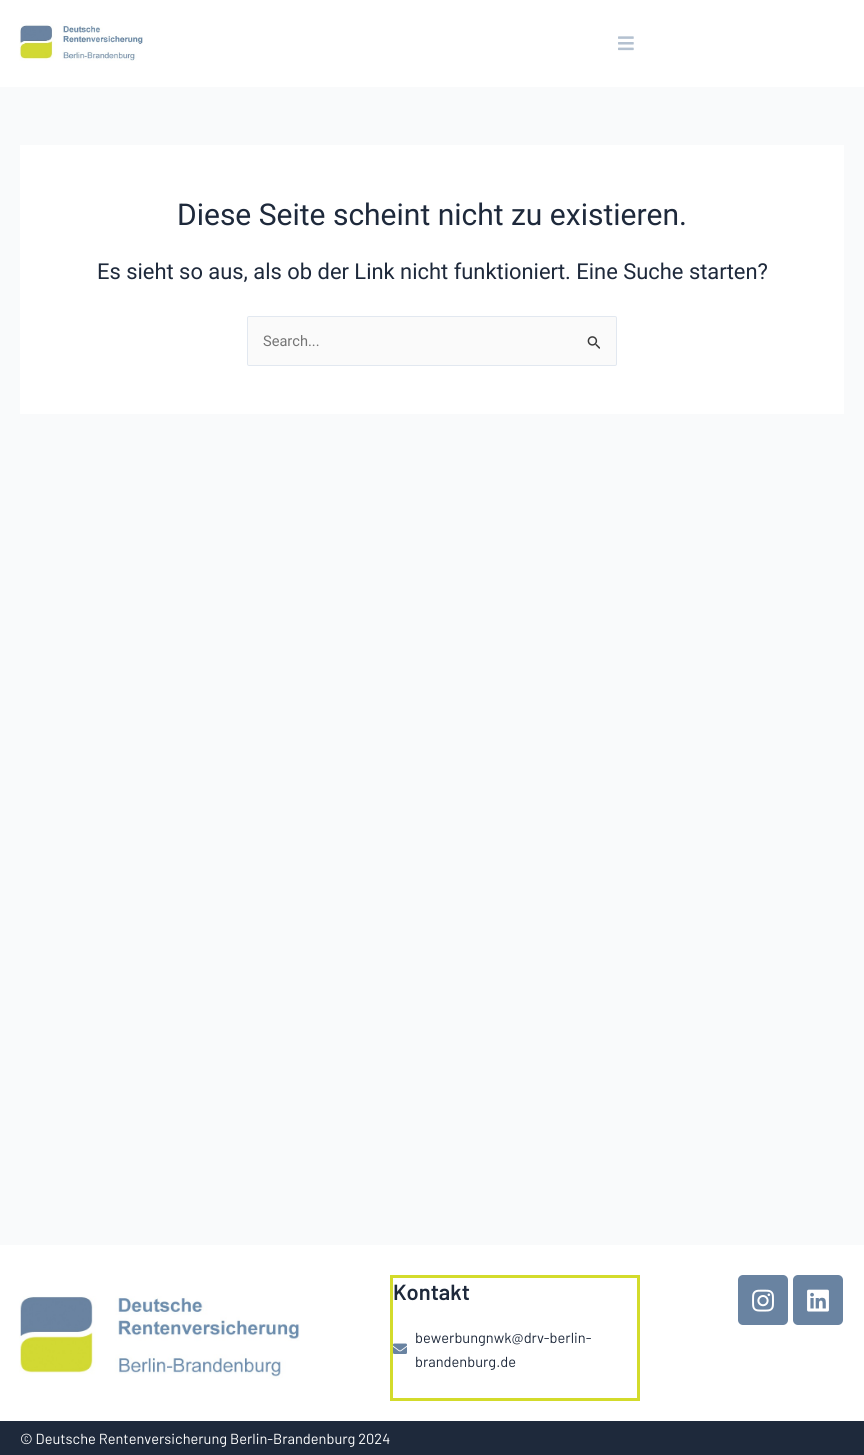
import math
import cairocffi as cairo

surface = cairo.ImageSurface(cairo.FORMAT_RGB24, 864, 1455)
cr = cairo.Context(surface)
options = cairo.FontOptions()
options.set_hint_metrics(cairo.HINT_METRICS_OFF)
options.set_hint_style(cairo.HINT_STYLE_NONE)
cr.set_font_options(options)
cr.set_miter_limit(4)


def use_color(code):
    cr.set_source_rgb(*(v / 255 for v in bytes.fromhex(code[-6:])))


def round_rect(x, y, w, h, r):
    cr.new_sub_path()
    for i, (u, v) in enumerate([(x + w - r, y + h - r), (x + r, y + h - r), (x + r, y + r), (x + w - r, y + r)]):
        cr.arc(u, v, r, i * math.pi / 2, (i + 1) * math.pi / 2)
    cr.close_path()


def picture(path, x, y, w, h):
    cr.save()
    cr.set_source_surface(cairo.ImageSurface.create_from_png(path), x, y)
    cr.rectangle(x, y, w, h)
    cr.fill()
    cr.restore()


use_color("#f9fafb")
cr.paint()
use_color("#ffffff")
cr.rectangle(0, 0, 864, 87)
cr.fill()
picture("img1.png", 19, 22, 124, 39)
picture("img2.png", 618, 36, 16, 15)
cr.rectangle(20, 145, 824, 269)
cr.fill()
cr.select_font_face("Roboto")
cr.set_font_size(30)
use_color("#1e293b")
cr.move_to(177, 225)
cr.show_text("Diese Seite scheint nicht zu existieren.")
cr.set_font_size(21.9)
cr.move_to(97, 279)
cr.show_text("Es sieht so aus, als ob der Link nicht funktioniert. Eine Suche starten?")
use_color("#fafafa")
round_rect(247.5, 316.5, 369, 49, 1.5)
cr.fill_preserve()
use_color("#e2e8f0")
cr.set_line_width(1)
cr.stroke()
cr.set_font_size(14.6)
use_color("#757575")
cr.move_to(263, 346)
cr.show_text("Search...")
picture("img3.png", 587, 336, 13, 13)
use_color("#ffffff")
cr.rectangle(0, 1245, 864, 176)
cr.fill()
picture("img4.png", 19, 1296, 281, 83)
cr.rectangle(391.5, 1276.5, 247, 123)
use_color("#d3db2b")
cr.set_line_width(3)
cr.stroke()
cr.select_font_face("Barlow SemiBold")
cr.set_font_size(21.9)
use_color("#1e293b")
cr.move_to(393, 1300)
cr.show_text("Kontakt")
picture("img5.png", 393, 1343, 14, 11)
cr.select_font_face("Barlow")
cr.set_font_size(14.6)
cr.move_to(415, 1343)
cr.show_text("bewerbungnwk@drv-berlin-")
cr.move_to(415, 1367)
cr.show_text("brandenburg.de")
use_color("#6983a1")
round_rect(738, 1275, 50, 50, 5)
cr.fill()
picture("img6.png", 752, 1289, 22, 23)
round_rect(793, 1275, 50, 50, 5)
cr.fill()
picture("img7.png", 807, 1289, 22, 23)
use_color("#1e293b")
cr.rectangle(0, 1421, 864, 34)
cr.fill()
use_color("#ffffff")
cr.move_to(20, 1444)
cr.show_text("© Deutsche Rentenversicherung Berlin-Brandenburg 2024")
surface.write_to_png("result.png")
